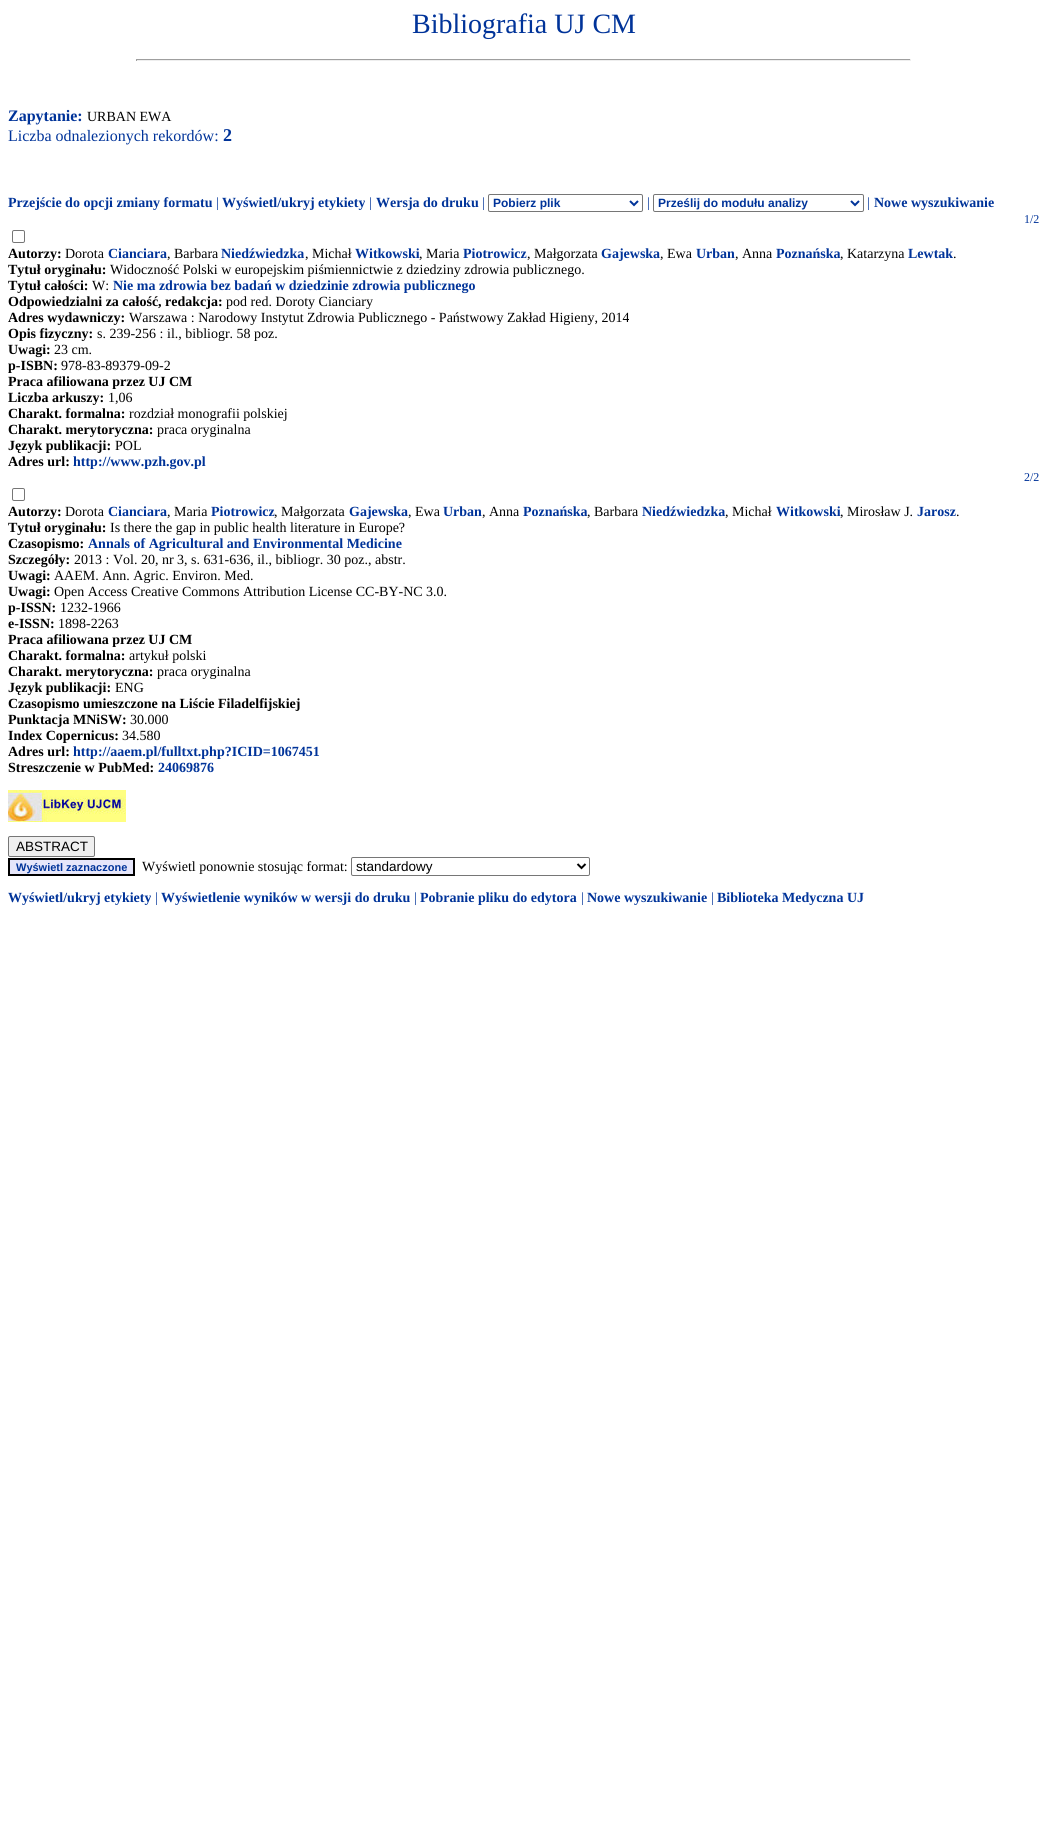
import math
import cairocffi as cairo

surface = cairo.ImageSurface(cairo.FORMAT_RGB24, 1047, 1825)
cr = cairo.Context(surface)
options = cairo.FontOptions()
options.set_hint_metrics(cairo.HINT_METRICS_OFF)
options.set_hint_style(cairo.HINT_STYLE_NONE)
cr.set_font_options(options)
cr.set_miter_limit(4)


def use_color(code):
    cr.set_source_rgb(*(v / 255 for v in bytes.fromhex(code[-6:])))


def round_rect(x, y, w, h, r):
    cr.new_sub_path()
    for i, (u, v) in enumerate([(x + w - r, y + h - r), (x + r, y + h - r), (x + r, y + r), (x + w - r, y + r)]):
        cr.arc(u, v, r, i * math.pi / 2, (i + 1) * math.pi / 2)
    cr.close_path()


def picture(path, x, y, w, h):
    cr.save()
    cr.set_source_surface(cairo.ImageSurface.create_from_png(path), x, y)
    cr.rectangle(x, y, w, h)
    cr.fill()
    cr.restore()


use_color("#ffffff")
cr.paint()
cr.select_font_face("Liberation Serif")
cr.set_font_size(28)
use_color("#003399")
cr.move_to(412, 33)
cr.show_text("Bibliografia UJ CM")
use_color("#9f9f9f")
cr.rectangle(136, 59, 775, 1)
cr.fill()
use_color("#eeeeee")
cr.rectangle(910, 59, 1, 2)
cr.fill()
cr.rectangle(136, 60, 775, 1)
cr.fill()
use_color("#9f9f9f")
cr.rectangle(136, 59, 1, 2)
cr.fill()
cr.select_font_face("Liberation Serif", cairo.FONT_SLANT_NORMAL, cairo.FONT_WEIGHT_BOLD)
cr.set_font_size(16)
use_color("#003399")
cr.move_to(8, 121)
cr.show_text("Zapytanie:")
cr.select_font_face("Liberation Serif")
cr.set_font_size(14)
use_color("#000000")
cr.move_to(87, 121)
cr.show_text("URBAN EWA")
cr.set_font_size(16)
use_color("#003399")
cr.move_to(8, 141)
cr.show_text("Liczba odnalezionych rekordów:")
cr.select_font_face("Liberation Serif", cairo.FONT_SLANT_NORMAL, cairo.FONT_WEIGHT_BOLD)
cr.set_font_size(18)
cr.move_to(223, 141)
cr.show_text("2")
cr.set_font_size(14)
cr.move_to(8, 207)
cr.show_text("Przejście do opcji zmiany formatu")
cr.select_font_face("Liberation Serif")
cr.move_to(216, 207)
cr.show_text("|")
cr.select_font_face("Liberation Serif", cairo.FONT_SLANT_NORMAL, cairo.FONT_WEIGHT_BOLD)
cr.move_to(222, 207)
cr.show_text("Wyświetl/ukryj etykiety")
cr.select_font_face("Liberation Serif")
cr.move_to(369, 207)
cr.show_text("|")
cr.select_font_face("Liberation Serif", cairo.FONT_SLANT_NORMAL, cairo.FONT_WEIGHT_BOLD)
cr.move_to(376, 207)
cr.show_text("Wersja do druku")
cr.select_font_face("Liberation Serif")
cr.move_to(482, 207)
cr.show_text("|")
round_rect(488.5, 194.5, 154, 17, 1.5)
use_color("#767676")
cr.set_line_width(1)
cr.stroke()
cr.new_path()
cr.move_to(630, 201)
cr.line_to(634, 205)
cr.line_to(638, 201)
use_color("#003399")
cr.set_line_width(2)
cr.stroke()
cr.select_font_face("Liberation Sans", cairo.FONT_SLANT_NORMAL, cairo.FONT_WEIGHT_BOLD)
cr.set_font_size(12)
cr.move_to(493, 207)
cr.show_text("Pobierz plik")
cr.select_font_face("Liberation Serif")
cr.set_font_size(14)
cr.move_to(647, 207)
cr.show_text("|")
round_rect(653.5, 194.5, 210, 17, 1.5)
use_color("#767676")
cr.set_line_width(1)
cr.stroke()
cr.new_path()
cr.move_to(851, 201)
cr.line_to(855, 205)
cr.line_to(859, 201)
use_color("#003399")
cr.set_line_width(2)
cr.stroke()
cr.select_font_face("Liberation Sans", cairo.FONT_SLANT_NORMAL, cairo.FONT_WEIGHT_BOLD)
cr.set_font_size(12)
cr.move_to(658, 207)
cr.show_text("Prześlij do modułu analizy")
cr.select_font_face("Liberation Serif")
cr.set_font_size(14)
cr.move_to(867, 207)
cr.show_text("|")
cr.select_font_face("Liberation Serif", cairo.FONT_SLANT_NORMAL, cairo.FONT_WEIGHT_BOLD)
cr.move_to(874, 207)
cr.show_text("Nowe wyszukiwanie")
cr.select_font_face("Liberation Serif")
cr.set_font_size(12)
cr.move_to(1024, 223)
cr.show_text("1/2")
round_rect(12.5, 230.5, 12, 12, 1.5)
use_color("#767676")
cr.set_line_width(1)
cr.stroke()
cr.select_font_face("Liberation Serif", cairo.FONT_SLANT_NORMAL, cairo.FONT_WEIGHT_BOLD)
cr.set_font_size(14)
use_color("#000000")
cr.move_to(8, 258)
cr.show_text("Autorzy:")
cr.select_font_face("Liberation Serif")
cr.move_to(65, 258)
cr.show_text("Dorota")
cr.select_font_face("Liberation Serif", cairo.FONT_SLANT_NORMAL, cairo.FONT_WEIGHT_BOLD)
use_color("#003399")
cr.move_to(108, 258)
cr.show_text("Cianciara")
cr.select_font_face("Liberation Serif")
use_color("#000000")
cr.move_to(167, 258)
cr.show_text(", Barbara")
cr.select_font_face("Liberation Serif", cairo.FONT_SLANT_NORMAL, cairo.FONT_WEIGHT_BOLD)
use_color("#003399")
cr.move_to(221, 258)
cr.show_text("Niedźwiedzka")
cr.select_font_face("Liberation Serif")
use_color("#000000")
cr.move_to(305, 258)
cr.show_text(", Michał")
cr.select_font_face("Liberation Serif", cairo.FONT_SLANT_NORMAL, cairo.FONT_WEIGHT_BOLD)
use_color("#003399")
cr.move_to(355, 258)
cr.show_text("Witkowski")
cr.select_font_face("Liberation Serif")
use_color("#000000")
cr.move_to(419, 258)
cr.show_text(", Maria")
cr.select_font_face("Liberation Serif", cairo.FONT_SLANT_NORMAL, cairo.FONT_WEIGHT_BOLD)
use_color("#003399")
cr.move_to(463, 258)
cr.show_text("Piotrowicz")
cr.select_font_face("Liberation Serif")
use_color("#000000")
cr.move_to(527, 258)
cr.show_text(", Małgorzata")
cr.select_font_face("Liberation Serif", cairo.FONT_SLANT_NORMAL, cairo.FONT_WEIGHT_BOLD)
use_color("#003399")
cr.move_to(601, 258)
cr.show_text("Gajewska")
cr.select_font_face("Liberation Serif")
use_color("#000000")
cr.move_to(660, 258)
cr.show_text(", Ewa")
cr.select_font_face("Liberation Serif", cairo.FONT_SLANT_NORMAL, cairo.FONT_WEIGHT_BOLD)
use_color("#003399")
cr.move_to(696, 258)
cr.show_text("Urban")
cr.select_font_face("Liberation Serif")
use_color("#000000")
cr.move_to(735, 258)
cr.show_text(", Anna")
cr.select_font_face("Liberation Serif", cairo.FONT_SLANT_NORMAL, cairo.FONT_WEIGHT_BOLD)
use_color("#003399")
cr.move_to(776, 258)
cr.show_text("Poznańska")
cr.select_font_face("Liberation Serif")
use_color("#000000")
cr.move_to(840, 258)
cr.show_text(", Katarzyna")
cr.select_font_face("Liberation Serif", cairo.FONT_SLANT_NORMAL, cairo.FONT_WEIGHT_BOLD)
use_color("#003399")
cr.move_to(908, 258)
cr.show_text("Lewtak")
cr.select_font_face("Liberation Serif")
use_color("#000000")
cr.move_to(953, 258)
cr.show_text(".")
cr.select_font_face("Liberation Serif", cairo.FONT_SLANT_NORMAL, cairo.FONT_WEIGHT_BOLD)
cr.move_to(8, 274)
cr.show_text("Tytuł oryginału:")
cr.select_font_face("Liberation Serif")
cr.move_to(110, 274)
cr.show_text("Widoczność Polski w europejskim piśmiennictwie z dziedziny zdrowia publicznego.")
cr.select_font_face("Liberation Serif", cairo.FONT_SLANT_NORMAL, cairo.FONT_WEIGHT_BOLD)
cr.move_to(8, 290)
cr.show_text("Tytuł całości:")
cr.select_font_face("Liberation Serif")
cr.move_to(92, 290)
cr.show_text("W:")
cr.select_font_face("Liberation Serif", cairo.FONT_SLANT_NORMAL, cairo.FONT_WEIGHT_BOLD)
use_color("#003399")
cr.move_to(113, 290)
cr.show_text("Nie ma zdrowia bez badań w dziedzinie zdrowia publicznego")
use_color("#000000")
cr.move_to(8, 306)
cr.show_text("Odpowiedzialni za całość, redakcja:")
cr.select_font_face("Liberation Serif")
cr.move_to(226, 306)
cr.show_text("pod red. Doroty Cianciary")
cr.select_font_face("Liberation Serif", cairo.FONT_SLANT_NORMAL, cairo.FONT_WEIGHT_BOLD)
cr.move_to(8, 322)
cr.show_text("Adres wydawniczy:")
cr.select_font_face("Liberation Serif")
cr.move_to(129, 322)
cr.show_text("Warszawa : Narodowy Instytut Zdrowia Publicznego - Państwowy Zakład Higieny, 2014")
cr.select_font_face("Liberation Serif", cairo.FONT_SLANT_NORMAL, cairo.FONT_WEIGHT_BOLD)
cr.move_to(8, 338)
cr.show_text("Opis fizyczny:")
cr.select_font_face("Liberation Serif")
cr.move_to(97, 338)
cr.show_text("s. 239-256 : il., bibliogr. 58 poz.")
cr.select_font_face("Liberation Serif", cairo.FONT_SLANT_NORMAL, cairo.FONT_WEIGHT_BOLD)
cr.move_to(8, 354)
cr.show_text("Uwagi:")
cr.select_font_face("Liberation Serif")
cr.move_to(54, 354)
cr.show_text("23 cm.")
cr.select_font_face("Liberation Serif", cairo.FONT_SLANT_NORMAL, cairo.FONT_WEIGHT_BOLD)
cr.move_to(8, 370)
cr.show_text("p-ISBN:")
cr.select_font_face("Liberation Serif")
cr.move_to(61, 370)
cr.show_text("978-83-89379-09-2")
cr.select_font_face("Liberation Serif", cairo.FONT_SLANT_NORMAL, cairo.FONT_WEIGHT_BOLD)
cr.move_to(8, 386)
cr.show_text("Praca afiliowana przez UJ CM")
cr.move_to(8, 402)
cr.show_text("Liczba arkuszy:")
cr.select_font_face("Liberation Serif")
cr.move_to(108, 402)
cr.show_text("1,06")
cr.select_font_face("Liberation Serif", cairo.FONT_SLANT_NORMAL, cairo.FONT_WEIGHT_BOLD)
cr.move_to(8, 418)
cr.show_text("Charakt. formalna:")
cr.select_font_face("Liberation Serif")
cr.move_to(129, 418)
cr.show_text("rozdział monografii polskiej")
cr.select_font_face("Liberation Serif", cairo.FONT_SLANT_NORMAL, cairo.FONT_WEIGHT_BOLD)
cr.move_to(8, 434)
cr.show_text("Charakt. merytoryczna:")
cr.select_font_face("Liberation Serif")
cr.move_to(157, 434)
cr.show_text("praca oryginalna")
cr.select_font_face("Liberation Serif", cairo.FONT_SLANT_NORMAL, cairo.FONT_WEIGHT_BOLD)
cr.move_to(8, 450)
cr.show_text("Język publikacji:")
cr.select_font_face("Liberation Serif")
cr.move_to(115, 450)
cr.show_text("POL")
cr.select_font_face("Liberation Serif", cairo.FONT_SLANT_NORMAL, cairo.FONT_WEIGHT_BOLD)
cr.move_to(8, 466)
cr.show_text("Adres url:")
use_color("#003399")
cr.move_to(73, 466)
cr.show_text("http://www.pzh.gov.pl")
cr.select_font_face("Liberation Serif")
cr.set_font_size(12)
cr.move_to(1024, 481)
cr.show_text("2/2")
round_rect(12.5, 488.5, 12, 12, 1.5)
use_color("#767676")
cr.stroke()
cr.select_font_face("Liberation Serif", cairo.FONT_SLANT_NORMAL, cairo.FONT_WEIGHT_BOLD)
cr.set_font_size(14)
use_color("#000000")
cr.move_to(8, 516)
cr.show_text("Autorzy:")
cr.select_font_face("Liberation Serif")
cr.move_to(65, 516)
cr.show_text("Dorota")
cr.select_font_face("Liberation Serif", cairo.FONT_SLANT_NORMAL, cairo.FONT_WEIGHT_BOLD)
use_color("#003399")
cr.move_to(108, 516)
cr.show_text("Cianciara")
cr.select_font_face("Liberation Serif")
use_color("#000000")
cr.move_to(167, 516)
cr.show_text(", Maria")
cr.select_font_face("Liberation Serif", cairo.FONT_SLANT_NORMAL, cairo.FONT_WEIGHT_BOLD)
use_color("#003399")
cr.move_to(211, 516)
cr.show_text("Piotrowicz")
cr.select_font_face("Liberation Serif")
use_color("#000000")
cr.move_to(274, 516)
cr.show_text(", Małgorzata")
cr.select_font_face("Liberation Serif", cairo.FONT_SLANT_NORMAL, cairo.FONT_WEIGHT_BOLD)
use_color("#003399")
cr.move_to(349, 516)
cr.show_text("Gajewska")
cr.select_font_face("Liberation Serif")
use_color("#000000")
cr.move_to(408, 516)
cr.show_text(", Ewa")
cr.select_font_face("Liberation Serif", cairo.FONT_SLANT_NORMAL, cairo.FONT_WEIGHT_BOLD)
use_color("#003399")
cr.move_to(443, 516)
cr.show_text("Urban")
cr.select_font_face("Liberation Serif")
use_color("#000000")
cr.move_to(482, 516)
cr.show_text(", Anna")
cr.select_font_face("Liberation Serif", cairo.FONT_SLANT_NORMAL, cairo.FONT_WEIGHT_BOLD)
use_color("#003399")
cr.move_to(523, 516)
cr.show_text("Poznańska")
cr.select_font_face("Liberation Serif")
use_color("#000000")
cr.move_to(587, 516)
cr.show_text(", Barbara")
cr.select_font_face("Liberation Serif", cairo.FONT_SLANT_NORMAL, cairo.FONT_WEIGHT_BOLD)
use_color("#003399")
cr.move_to(642, 516)
cr.show_text("Niedźwiedzka")
cr.select_font_face("Liberation Serif")
use_color("#000000")
cr.move_to(725, 516)
cr.show_text(", Michał")
cr.select_font_face("Liberation Serif", cairo.FONT_SLANT_NORMAL, cairo.FONT_WEIGHT_BOLD)
use_color("#003399")
cr.move_to(776, 516)
cr.show_text("Witkowski")
cr.select_font_face("Liberation Serif")
use_color("#000000")
cr.move_to(840, 516)
cr.show_text(", Mirosław J.")
cr.select_font_face("Liberation Serif", cairo.FONT_SLANT_NORMAL, cairo.FONT_WEIGHT_BOLD)
use_color("#003399")
cr.move_to(917, 516)
cr.show_text("Jarosz")
cr.select_font_face("Liberation Serif")
use_color("#000000")
cr.move_to(956, 516)
cr.show_text(".")
cr.select_font_face("Liberation Serif", cairo.FONT_SLANT_NORMAL, cairo.FONT_WEIGHT_BOLD)
cr.move_to(8, 532)
cr.show_text("Tytuł oryginału:")
cr.select_font_face("Liberation Serif")
cr.move_to(110, 532)
cr.show_text("Is there the gap in public health literature in Europe?")
cr.select_font_face("Liberation Serif", cairo.FONT_SLANT_NORMAL, cairo.FONT_WEIGHT_BOLD)
cr.move_to(8, 548)
cr.show_text("Czasopismo:")
use_color("#003399")
cr.move_to(88, 548)
cr.show_text("Annals of Agricultural and Environmental Medicine")
use_color("#000000")
cr.move_to(8, 564)
cr.show_text("Szczegóły:")
cr.select_font_face("Liberation Serif")
cr.move_to(74, 564)
cr.show_text("2013 : Vol. 20, nr 3, s. 631-636, il., bibliogr. 30 poz., abstr.")
cr.select_font_face("Liberation Serif", cairo.FONT_SLANT_NORMAL, cairo.FONT_WEIGHT_BOLD)
cr.move_to(8, 580)
cr.show_text("Uwagi:")
cr.select_font_face("Liberation Serif")
cr.move_to(54, 580)
cr.show_text("AAEM. Ann. Agric. Environ. Med.")
cr.select_font_face("Liberation Serif", cairo.FONT_SLANT_NORMAL, cairo.FONT_WEIGHT_BOLD)
cr.move_to(8, 596)
cr.show_text("Uwagi:")
cr.select_font_face("Liberation Serif")
cr.move_to(54, 596)
cr.show_text("Open Access Creative Commons Attribution License CC-BY-NC 3.0.")
cr.select_font_face("Liberation Serif", cairo.FONT_SLANT_NORMAL, cairo.FONT_WEIGHT_BOLD)
cr.move_to(8, 612)
cr.show_text("p-ISSN:")
cr.select_font_face("Liberation Serif")
cr.move_to(60, 612)
cr.show_text("1232-1966")
cr.select_font_face("Liberation Serif", cairo.FONT_SLANT_NORMAL, cairo.FONT_WEIGHT_BOLD)
cr.move_to(8, 628)
cr.show_text("e-ISSN:")
cr.select_font_face("Liberation Serif")
cr.move_to(58, 628)
cr.show_text("1898-2263")
cr.select_font_face("Liberation Serif", cairo.FONT_SLANT_NORMAL, cairo.FONT_WEIGHT_BOLD)
cr.move_to(8, 644)
cr.show_text("Praca afiliowana przez UJ CM")
cr.move_to(8, 660)
cr.show_text("Charakt. formalna:")
cr.select_font_face("Liberation Serif")
cr.move_to(129, 660)
cr.show_text("artykuł polski")
cr.select_font_face("Liberation Serif", cairo.FONT_SLANT_NORMAL, cairo.FONT_WEIGHT_BOLD)
cr.move_to(8, 676)
cr.show_text("Charakt. merytoryczna:")
cr.select_font_face("Liberation Serif")
cr.move_to(157, 676)
cr.show_text("praca oryginalna")
cr.select_font_face("Liberation Serif", cairo.FONT_SLANT_NORMAL, cairo.FONT_WEIGHT_BOLD)
cr.move_to(8, 692)
cr.show_text("Język publikacji:")
cr.select_font_face("Liberation Serif")
cr.move_to(115, 692)
cr.show_text("ENG")
cr.select_font_face("Liberation Serif", cairo.FONT_SLANT_NORMAL, cairo.FONT_WEIGHT_BOLD)
cr.move_to(8, 708)
cr.show_text("Czasopismo umieszczone na Liście Filadelfijskiej")
cr.move_to(8, 724)
cr.show_text("Punktacja MNiSW:")
cr.select_font_face("Liberation Serif")
cr.move_to(130, 724)
cr.show_text("30.000")
cr.select_font_face("Liberation Serif", cairo.FONT_SLANT_NORMAL, cairo.FONT_WEIGHT_BOLD)
cr.move_to(8, 740)
cr.show_text("Index Copernicus:")
cr.select_font_face("Liberation Serif")
cr.move_to(122, 740)
cr.show_text("34.580")
cr.select_font_face("Liberation Serif", cairo.FONT_SLANT_NORMAL, cairo.FONT_WEIGHT_BOLD)
cr.move_to(8, 756)
cr.show_text("Adres url:")
use_color("#003399")
cr.move_to(73, 756)
cr.show_text("http://aaem.pl/fulltxt.php?ICID=1067451")
use_color("#000000")
cr.move_to(8, 772)
cr.show_text("Streszczenie w PubMed:")
use_color("#003399")
cr.move_to(158, 772)
cr.show_text("24069876")
picture("img1.png", 8, 790, 118, 32)
use_color("#efefef")
round_rect(8.5, 836.5, 86, 20, 1.5)
cr.fill_preserve()
use_color("#767676")
cr.stroke()
cr.select_font_face("Liberation Sans")
cr.set_font_size(13.5)
use_color("#000000")
cr.move_to(16, 851)
cr.show_text("ABSTRACT")
use_color("#e6e6fa")
cr.rectangle(9, 859, 125, 16)
cr.fill_preserve()
use_color("#000000")
cr.set_line_width(2)
cr.stroke()
cr.select_font_face("Liberation Sans", cairo.FONT_SLANT_NORMAL, cairo.FONT_WEIGHT_BOLD)
cr.set_font_size(11)
use_color("#003399")
cr.move_to(16, 871)
cr.show_text("Wyświetl zaznaczone")
cr.select_font_face("Liberation Serif")
cr.set_font_size(14)
use_color("#000000")
cr.move_to(142, 871)
cr.show_text("Wyświetl ponownie stosując format:")
round_rect(351.5, 857.5, 238, 18, 1.5)
use_color("#767676")
cr.set_line_width(1)
cr.stroke()
cr.new_path()
cr.move_to(577.5, 864)
cr.line_to(581.5, 868)
cr.line_to(585.5, 864)
use_color("#000000")
cr.set_line_width(2)
cr.stroke()
cr.select_font_face("Liberation Sans")
cr.set_font_size(13.5)
cr.move_to(356, 871)
cr.show_text("standardowy")
cr.select_font_face("Liberation Serif", cairo.FONT_SLANT_NORMAL, cairo.FONT_WEIGHT_BOLD)
cr.set_font_size(14)
use_color("#003399")
cr.move_to(8, 902)
cr.show_text("Wyświetl/ukryj etykiety")
cr.select_font_face("Liberation Serif")
cr.move_to(155, 902)
cr.show_text("|")
cr.select_font_face("Liberation Serif", cairo.FONT_SLANT_NORMAL, cairo.FONT_WEIGHT_BOLD)
cr.move_to(161, 902)
cr.show_text("Wyświetlenie wyników w wersji do druku")
cr.select_font_face("Liberation Serif")
cr.move_to(414, 902)
cr.show_text("|")
cr.select_font_face("Liberation Serif", cairo.FONT_SLANT_NORMAL, cairo.FONT_WEIGHT_BOLD)
cr.move_to(420, 902)
cr.show_text("Pobranie pliku do edytora")
cr.select_font_face("Liberation Serif")
cr.move_to(581, 902)
cr.show_text("|")
cr.select_font_face("Liberation Serif", cairo.FONT_SLANT_NORMAL, cairo.FONT_WEIGHT_BOLD)
cr.move_to(587, 902)
cr.show_text("Nowe wyszukiwanie")
cr.select_font_face("Liberation Serif")
cr.move_to(711, 902)
cr.show_text("|")
cr.select_font_face("Liberation Serif", cairo.FONT_SLANT_NORMAL, cairo.FONT_WEIGHT_BOLD)
cr.move_to(717, 902)
cr.show_text("Biblioteka Medyczna UJ")
surface.write_to_png("result.png")
